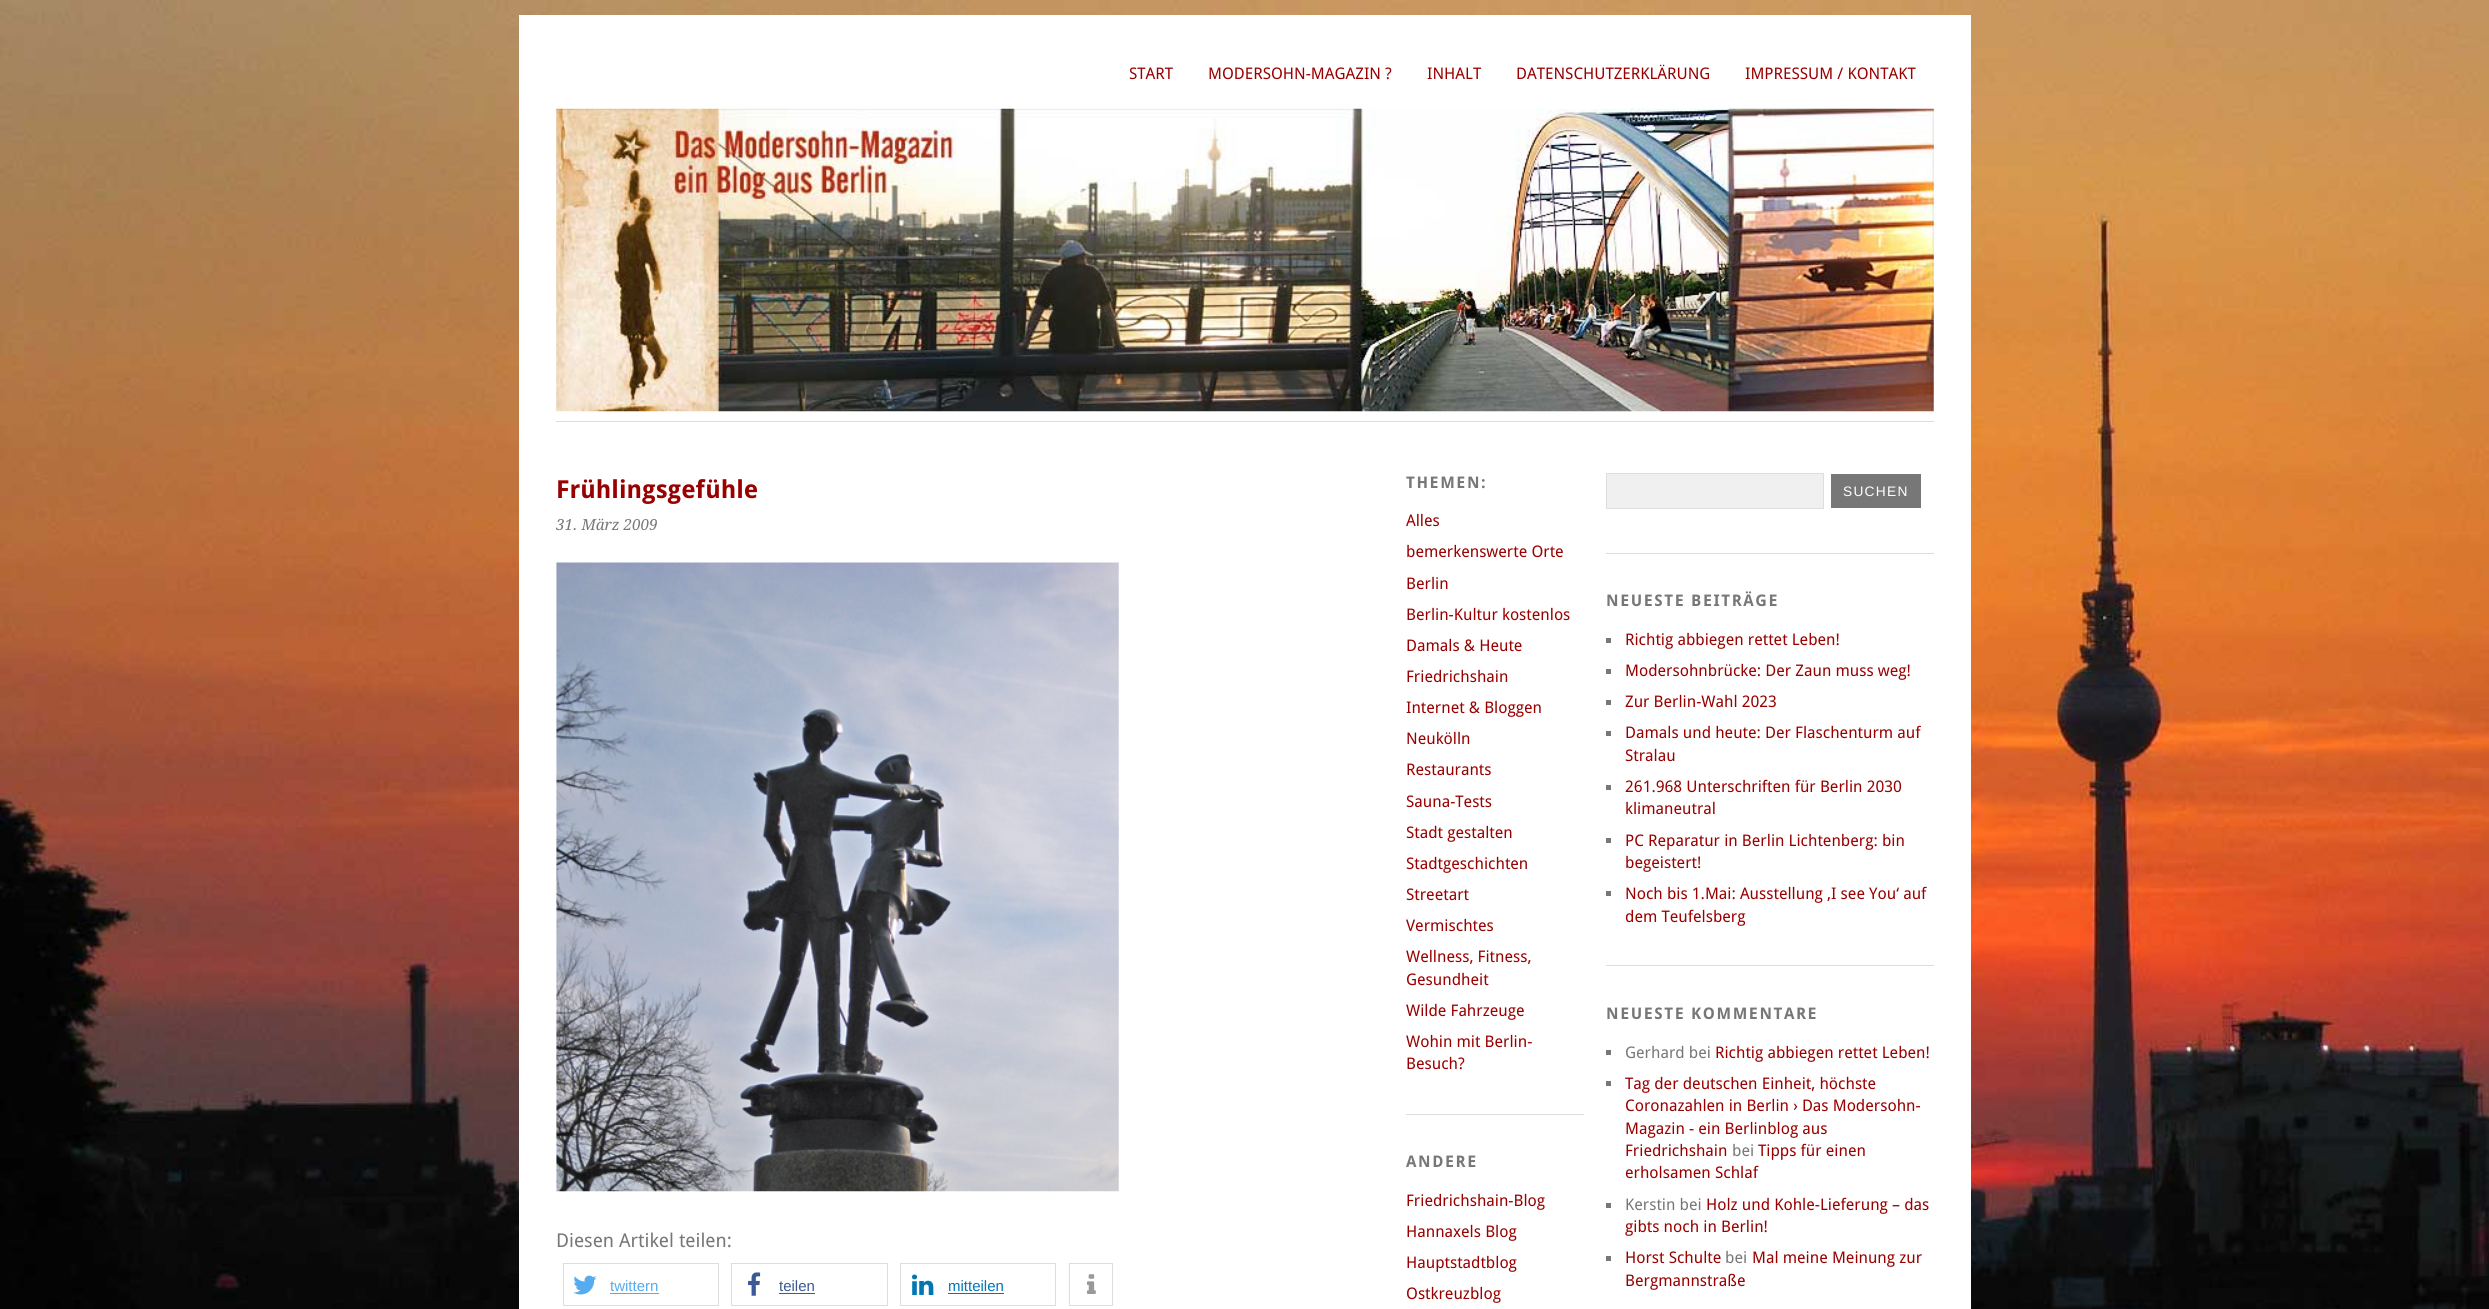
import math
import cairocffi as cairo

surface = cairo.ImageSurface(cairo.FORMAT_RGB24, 2489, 1309)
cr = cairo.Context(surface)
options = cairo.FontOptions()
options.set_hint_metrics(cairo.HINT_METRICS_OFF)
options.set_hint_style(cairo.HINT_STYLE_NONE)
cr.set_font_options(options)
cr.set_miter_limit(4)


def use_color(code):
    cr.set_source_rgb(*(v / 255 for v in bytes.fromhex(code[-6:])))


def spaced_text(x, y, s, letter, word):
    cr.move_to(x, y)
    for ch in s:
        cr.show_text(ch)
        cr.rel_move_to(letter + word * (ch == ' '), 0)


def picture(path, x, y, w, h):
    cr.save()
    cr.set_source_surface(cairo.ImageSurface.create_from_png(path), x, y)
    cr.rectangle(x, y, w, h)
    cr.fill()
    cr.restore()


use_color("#ffffff")
cr.paint()
picture("img1.png", 0, 0, 2489, 1309)
use_color("#ffffff")
cr.rectangle(519, 15, 1452, 1294)
cr.fill()
cr.select_font_face("Droid Sans")
cr.set_font_size(16)
use_color("#990000")
cr.move_to(1129, 79)
cr.show_text("START")
cr.move_to(1208, 79)
cr.show_text("MODERSOHN-MAGAZIN ?")
cr.move_to(1427, 79)
cr.show_text("INHALT")
cr.move_to(1516, 79)
cr.show_text("DATENSCHUTZERKLÄRUNG")
cr.move_to(1745, 79)
cr.show_text("IMPRESSUM / KONTAKT")
picture("img2.png", 556, 108, 1378, 304)
use_color("#dddddd")
cr.rectangle(556, 421, 1378, 1)
cr.fill()
cr.select_font_face("Droid Sans", cairo.FONT_SLANT_NORMAL, cairo.FONT_WEIGHT_BOLD)
cr.set_font_size(24.75)
use_color("#990000")
cr.move_to(556, 498)
cr.show_text("Frühlingsgefühle")
cr.select_font_face("Droid Serif", cairo.FONT_SLANT_ITALIC)
cr.set_font_size(15.25)
use_color("#777777")
cr.move_to(556, 530)
cr.show_text("31. März 2009")
picture("img3.png", 556, 562, 563, 630)
cr.select_font_face("Droid Sans")
cr.set_font_size(19)
cr.move_to(556, 1247)
cr.show_text("Diesen Artikel teilen:")
cr.rectangle(563.5, 1263.5, 155, 42)
use_color("#dddddd")
cr.set_line_width(1)
cr.stroke()
picture("img4.png", 573, 1275, 24, 20)
cr.select_font_face("Liberation Sans")
cr.set_font_size(15)
use_color("#55acee")
cr.move_to(610, 1291)
cr.show_text("twittern")
cr.rectangle(610, 1293, 49, 1)
cr.fill()
cr.rectangle(731.5, 1263.5, 156, 42)
use_color("#dddddd")
cr.stroke()
picture("img5.png", 748, 1272, 13, 24)
use_color("#3b5998")
cr.move_to(779, 1291)
cr.show_text("teilen")
cr.rectangle(779, 1293, 36, 1)
cr.fill()
cr.rectangle(900.5, 1263.5, 155, 42)
use_color("#dddddd")
cr.stroke()
picture("img6.png", 912, 1274, 22, 22)
use_color("#0077b5")
cr.move_to(948, 1291)
cr.show_text("mitteilen")
cr.rectangle(948, 1293, 56, 1)
cr.fill()
cr.rectangle(1069.5, 1263.5, 43, 42)
use_color("#dddddd")
cr.stroke()
picture("img7.png", 1086, 1274, 10, 20)
cr.rectangle(1406, 1114, 178, 1)
cr.fill()
cr.select_font_face("Droid Sans", cairo.FONT_SLANT_NORMAL, cairo.FONT_WEIGHT_BOLD)
cr.set_font_size(16)
use_color("#777777")
spaced_text(1406, 488, "THEMEN:", 1.6, 0)
cr.select_font_face("Droid Sans")
use_color("#990000")
cr.move_to(1406, 526)
cr.show_text("Alles")
cr.move_to(1406, 557)
cr.show_text("bemerkenswerte Orte")
cr.move_to(1406, 589)
cr.show_text("Berlin")
cr.move_to(1406, 620)
cr.show_text("Berlin-Kultur kostenlos")
cr.move_to(1406, 651)
cr.show_text("Damals & Heute")
cr.move_to(1406, 682)
cr.show_text("Friedrichshain")
cr.move_to(1406, 713)
cr.show_text("Internet & Bloggen")
cr.move_to(1406, 744)
cr.show_text("Neukölln")
cr.move_to(1406, 775)
cr.show_text("Restaurants")
cr.move_to(1406, 807)
cr.show_text("Sauna-Tests")
cr.move_to(1406, 838)
cr.show_text("Stadt gestalten")
cr.move_to(1406, 869)
cr.show_text("Stadtgeschichten")
cr.move_to(1406, 900)
cr.show_text("Streetart")
cr.move_to(1406, 931)
cr.show_text("Vermischtes")
cr.move_to(1406, 962)
cr.show_text("Wellness, Fitness,")
cr.move_to(1406, 985)
cr.show_text("Gesundheit")
cr.move_to(1406, 1016)
cr.show_text("Wilde Fahrzeuge")
cr.move_to(1406, 1047)
cr.show_text("Wohin mit Berlin-")
cr.move_to(1406, 1069)
cr.show_text("Besuch?")
cr.select_font_face("Droid Sans", cairo.FONT_SLANT_NORMAL, cairo.FONT_WEIGHT_BOLD)
use_color("#777777")
spaced_text(1406, 1167, "ANDERE", 1.6, 0)
cr.select_font_face("Droid Sans")
use_color("#990000")
cr.move_to(1406, 1206)
cr.show_text("Friedrichshain-Blog")
cr.move_to(1406, 1237)
cr.show_text("Hannaxels Blog")
cr.move_to(1406, 1268)
cr.show_text("Hauptstadtblog")
cr.move_to(1406, 1299)
cr.show_text("Ostkreuzblog")
use_color("#dddddd")
cr.rectangle(1606, 553, 328, 1)
cr.fill()
use_color("#f0f0f0")
cr.rectangle(1606.5, 473.5, 217, 35)
cr.fill_preserve()
use_color("#dddddd")
cr.stroke()
use_color("#777777")
cr.rectangle(1831, 474, 90, 34)
cr.fill()
cr.select_font_face("Liberation Sans")
cr.set_font_size(13.75)
use_color("#ffffff")
spaced_text(1843, 496, "SUCHEN", 1.25, 0)
use_color("#dddddd")
cr.rectangle(1606, 965, 328, 1)
cr.fill()
cr.select_font_face("Droid Sans", cairo.FONT_SLANT_NORMAL, cairo.FONT_WEIGHT_BOLD)
cr.set_font_size(16)
use_color("#777777")
spaced_text(1606, 606, "NEUESTE BEITRÄGE", 1.6, 0)
cr.rectangle(1606, 638, 5, 5)
cr.fill()
cr.select_font_face("Droid Sans")
use_color("#990000")
cr.move_to(1625, 645)
cr.show_text("Richtig abbiegen rettet Leben!")
use_color("#777777")
cr.rectangle(1606, 669, 5, 5)
cr.fill()
use_color("#990000")
cr.move_to(1625, 676)
cr.show_text("Modersohnbrücke: Der Zaun muss weg!")
use_color("#777777")
cr.rectangle(1606, 700, 5, 5)
cr.fill()
use_color("#990000")
cr.move_to(1625, 707)
cr.show_text("Zur Berlin-Wahl 2023")
use_color("#777777")
cr.rectangle(1606, 731, 5, 5)
cr.fill()
use_color("#990000")
cr.move_to(1625, 738)
cr.show_text("Damals und heute: Der Flaschenturm auf")
cr.move_to(1625, 761)
cr.show_text("Stralau")
use_color("#777777")
cr.rectangle(1606, 785, 5, 5)
cr.fill()
use_color("#990000")
cr.move_to(1625, 792)
cr.show_text("261.968 Unterschriften für Berlin 2030")
cr.move_to(1625, 814)
cr.show_text("klimaneutral")
use_color("#777777")
cr.rectangle(1606, 838, 5, 5)
cr.fill()
use_color("#990000")
cr.move_to(1625, 846)
cr.show_text("PC Reparatur in Berlin Lichtenberg: bin")
cr.move_to(1625, 868)
cr.show_text("begeistert!")
use_color("#777777")
cr.rectangle(1606, 891, 5, 5)
cr.fill()
use_color("#990000")
cr.move_to(1625, 899)
cr.show_text("Noch bis 1.Mai: Ausstellung ‚I see You‘ auf")
cr.move_to(1625, 922)
cr.show_text("dem Teufelsberg")
cr.select_font_face("Droid Sans", cairo.FONT_SLANT_NORMAL, cairo.FONT_WEIGHT_BOLD)
use_color("#777777")
spaced_text(1606, 1019, "NEUESTE KOMMENTARE", 1.6, 0)
cr.rectangle(1606, 1050, 5, 5)
cr.fill()
cr.select_font_face("Droid Sans")
cr.move_to(1625, 1058)
cr.show_text("Gerhard bei")
use_color("#990000")
cr.move_to(1715, 1058)
cr.show_text("Richtig abbiegen rettet Leben!")
use_color("#777777")
cr.rectangle(1606, 1081, 5, 5)
cr.fill()
use_color("#990000")
cr.move_to(1625, 1089)
cr.show_text("Tag der deutschen Einheit, höchste")
cr.move_to(1625, 1111)
cr.show_text("Coronazahlen in Berlin › Das Modersohn-")
cr.move_to(1625, 1134)
cr.show_text("Magazin - ein Berlinblog aus")
cr.move_to(1625, 1156)
cr.show_text("Friedrichshain")
use_color("#777777")
cr.move_to(1732, 1156)
cr.show_text("bei")
use_color("#990000")
cr.move_to(1758, 1156)
cr.show_text("Tipps für einen")
cr.move_to(1625, 1178)
cr.show_text("erholsamen Schlaf")
use_color("#777777")
cr.rectangle(1606, 1203, 5, 5)
cr.fill()
cr.move_to(1625, 1210)
cr.show_text("Kerstin bei")
use_color("#990000")
cr.move_to(1706, 1210)
cr.show_text("Holz und Kohle-Lieferung – das")
cr.move_to(1625, 1232)
cr.show_text("gibts noch in Berlin!")
use_color("#777777")
cr.rectangle(1606, 1256, 5, 5)
cr.fill()
use_color("#990000")
cr.move_to(1625, 1263)
cr.show_text("Horst Schulte")
use_color("#777777")
cr.move_to(1725, 1263)
cr.show_text("bei")
use_color("#990000")
cr.move_to(1752, 1263)
cr.show_text("Mal meine Meinung zur")
cr.move_to(1625, 1286)
cr.show_text("Bergmannstraße")
surface.write_to_png("result.png")
